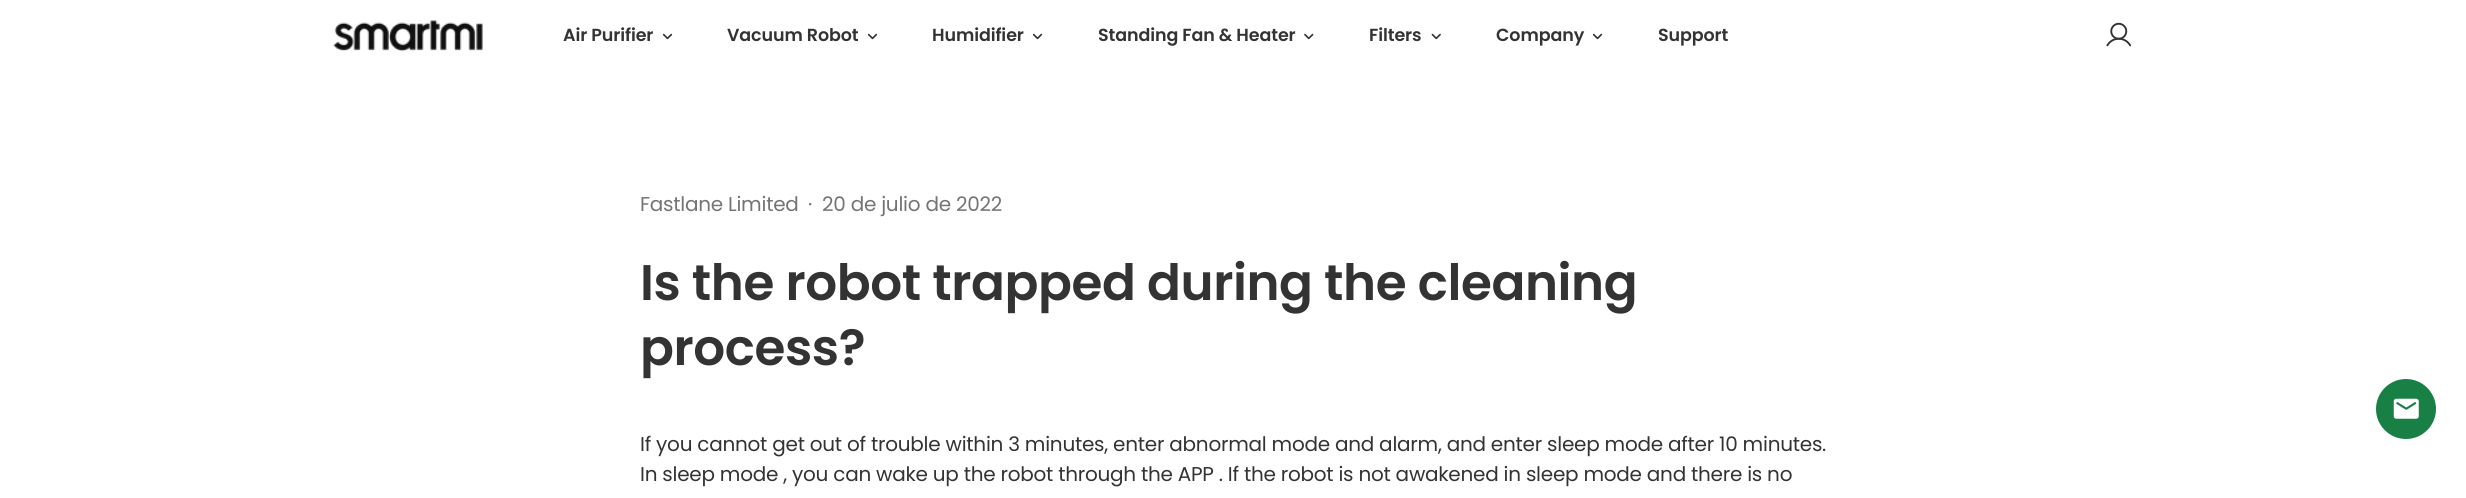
import math
import cairocffi as cairo

surface = cairo.ImageSurface(cairo.FORMAT_RGB24, 2466, 498)
cr = cairo.Context(surface)
options = cairo.FontOptions()
options.set_hint_metrics(cairo.HINT_METRICS_OFF)
options.set_hint_style(cairo.HINT_STYLE_NONE)
cr.set_font_options(options)
cr.set_miter_limit(4)


def use_color(code):
    cr.set_source_rgb(*(v / 255 for v in bytes.fromhex(code[-6:])))


def spaced_text(x, y, s, letter, word):
    cr.move_to(x, y)
    for ch in s:
        cr.show_text(ch)
        cr.rel_move_to(letter + word * (ch == ' '), 0)


def picture(path, x, y, w, h):
    cr.save()
    cr.set_source_surface(cairo.ImageSurface.create_from_png(path), x, y)
    cr.rectangle(x, y, w, h)
    cr.fill()
    cr.restore()


use_color("#ffffff")
cr.paint()
picture("img1.png", 333, 20, 150, 32)
cr.select_font_face("Poppins SemiBold")
cr.set_font_size(17.5)
use_color("#333333")
spaced_text(563, 41, "Air Purifier", -0.1, 0)
picture("img2.png", 662, 33, 11, 7)
spaced_text(727, 41, "Vacuum Robot", -0.1, 0)
picture("img2.png", 867, 33, 11, 7)
spaced_text(932, 41, "Humidifier", -0.1, 0)
picture("img2.png", 1032, 33, 11, 7)
spaced_text(1098, 41, "Standing Fan & Heater", -0.1, 0)
picture("img3.png", 1304, 33, 10, 7)
spaced_text(1369, 41, "Filters", -0.1, 0)
picture("img4.png", 1431, 33, 10, 7)
spaced_text(1496, 41, "Company", -0.1, 0)
picture("img2.png", 1592, 33, 11, 7)
spaced_text(1658, 41, "Support", -0.1, 0)
picture("img5.png", 2106, 22, 25, 25)
cr.select_font_face("Poppins")
cr.set_font_size(20)
use_color("#747475")
spaced_text(640, 211, "Fastlane Limited", -0.25, 0)
spaced_text(808, 211, "·", -0.25, 0)
spaced_text(822, 211, "20 de julio de 2022", -0.25, 0)
cr.select_font_face("Poppins SemiBold")
cr.set_font_size(50)
use_color("#333333")
spaced_text(640, 300, "Is the robot trapped during the cleaning", -0.4, 0)
spaced_text(640, 365, "process?", -0.4, 0)
cr.select_font_face("Poppins")
cr.set_font_size(20)
spaced_text(640, 451, "If you cannot get out of trouble within 3 minutes, enter abnormal mode and alarm, and enter sleep mode after 10 minutes.", -0.25, 0)
spaced_text(640, 481, "In sleep mode , you can wake up the robot through the APP . If the robot is not awakened in sleep mode and there is no", -0.25, 0)
use_color("#198045")
cr.new_path()
cr.arc(2406, 409, 30, 0, 2 * math.pi)
cr.fill()
picture("img6.png", 2393, 398, 26, 21)
surface.write_to_png("result.png")
